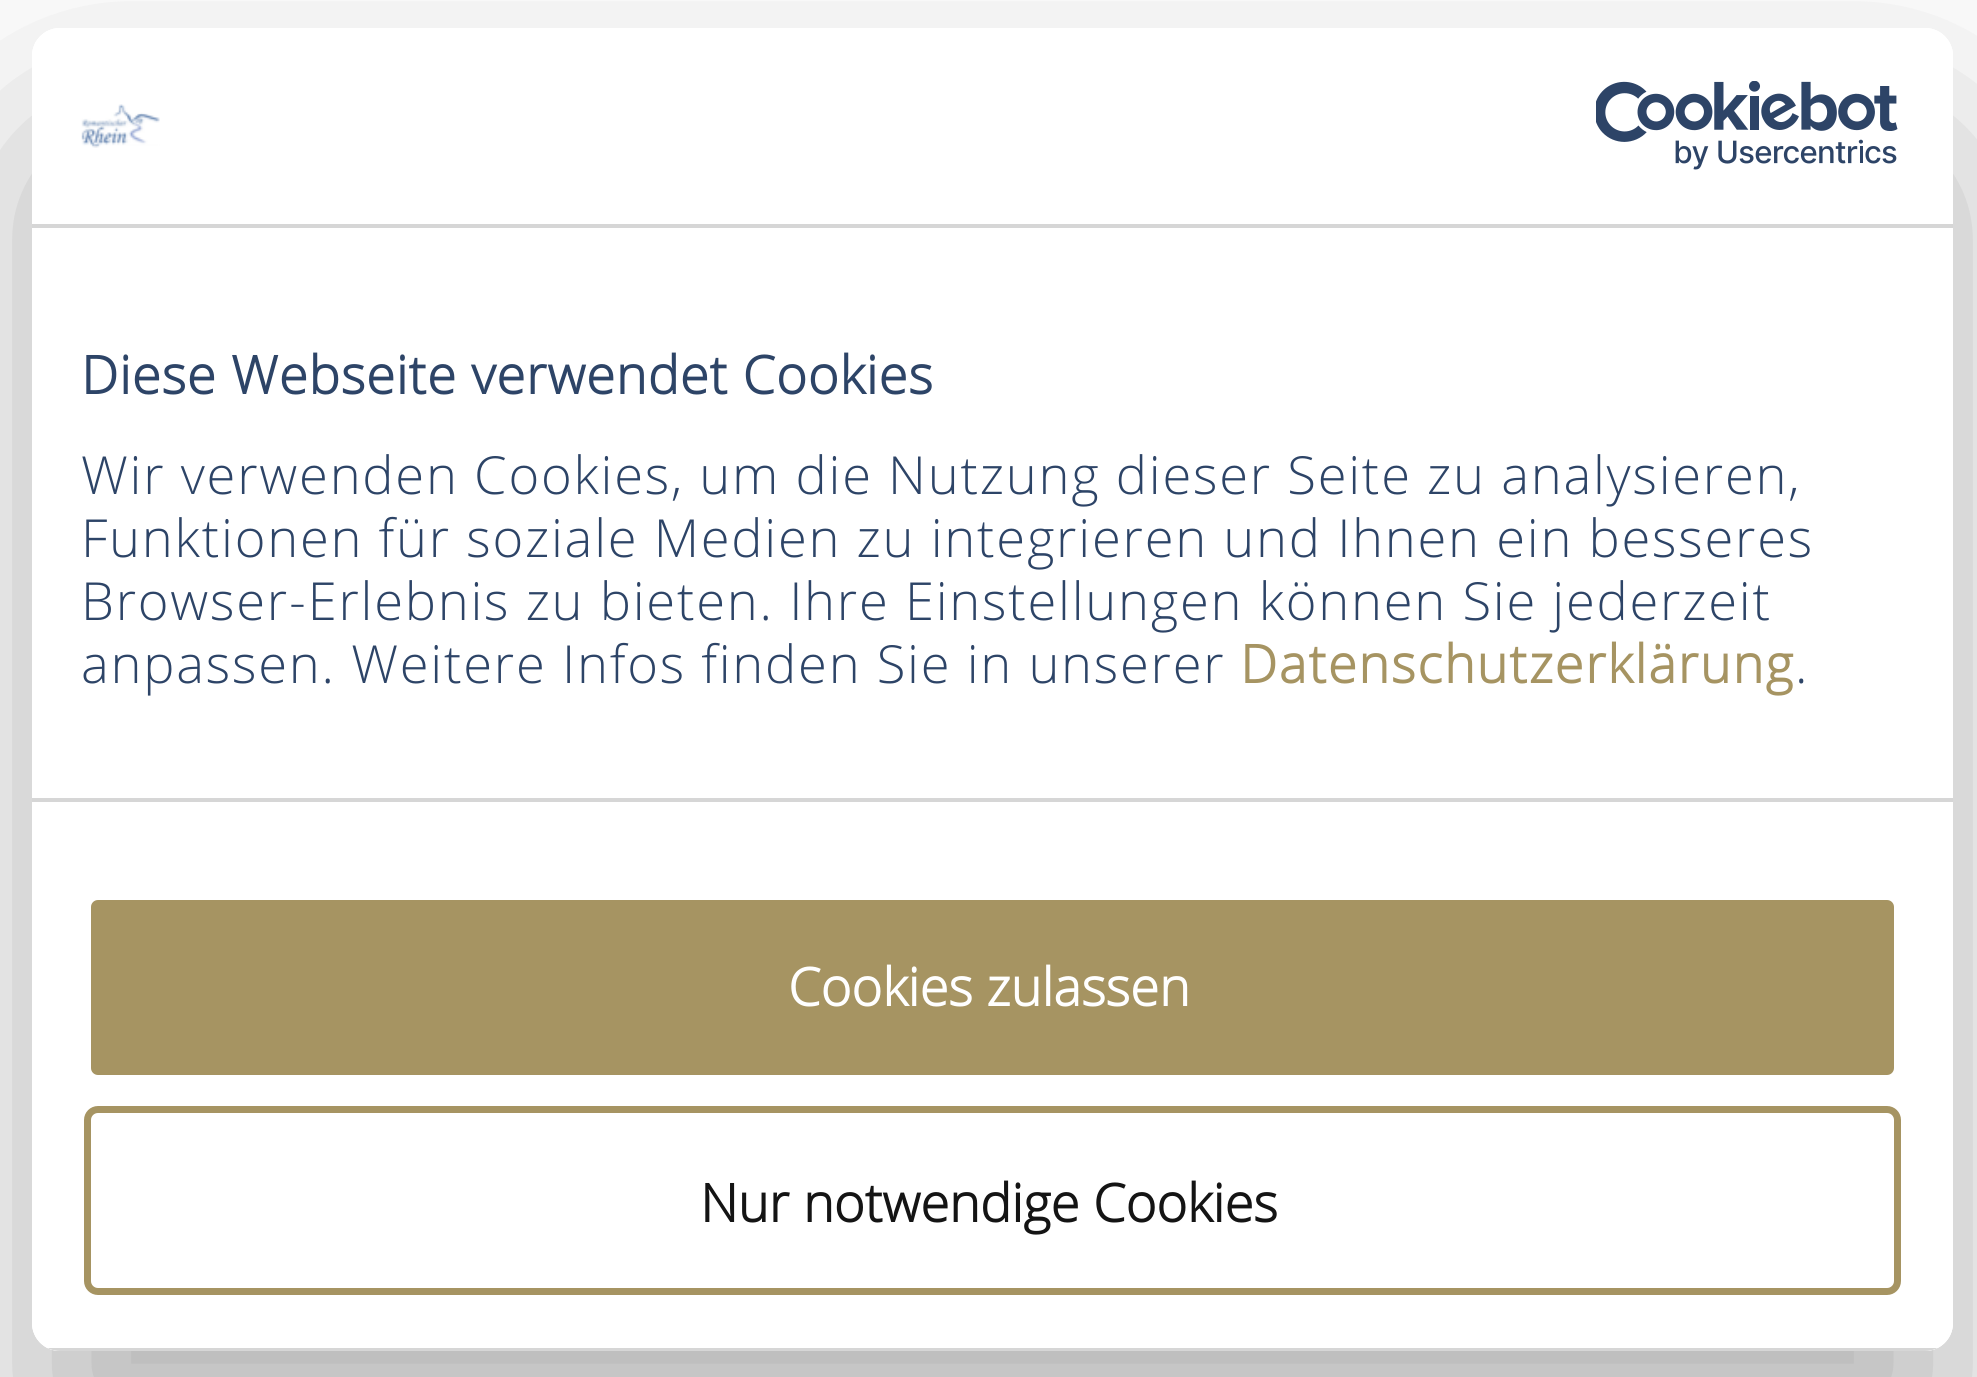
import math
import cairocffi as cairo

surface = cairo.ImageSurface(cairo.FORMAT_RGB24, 1977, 1377)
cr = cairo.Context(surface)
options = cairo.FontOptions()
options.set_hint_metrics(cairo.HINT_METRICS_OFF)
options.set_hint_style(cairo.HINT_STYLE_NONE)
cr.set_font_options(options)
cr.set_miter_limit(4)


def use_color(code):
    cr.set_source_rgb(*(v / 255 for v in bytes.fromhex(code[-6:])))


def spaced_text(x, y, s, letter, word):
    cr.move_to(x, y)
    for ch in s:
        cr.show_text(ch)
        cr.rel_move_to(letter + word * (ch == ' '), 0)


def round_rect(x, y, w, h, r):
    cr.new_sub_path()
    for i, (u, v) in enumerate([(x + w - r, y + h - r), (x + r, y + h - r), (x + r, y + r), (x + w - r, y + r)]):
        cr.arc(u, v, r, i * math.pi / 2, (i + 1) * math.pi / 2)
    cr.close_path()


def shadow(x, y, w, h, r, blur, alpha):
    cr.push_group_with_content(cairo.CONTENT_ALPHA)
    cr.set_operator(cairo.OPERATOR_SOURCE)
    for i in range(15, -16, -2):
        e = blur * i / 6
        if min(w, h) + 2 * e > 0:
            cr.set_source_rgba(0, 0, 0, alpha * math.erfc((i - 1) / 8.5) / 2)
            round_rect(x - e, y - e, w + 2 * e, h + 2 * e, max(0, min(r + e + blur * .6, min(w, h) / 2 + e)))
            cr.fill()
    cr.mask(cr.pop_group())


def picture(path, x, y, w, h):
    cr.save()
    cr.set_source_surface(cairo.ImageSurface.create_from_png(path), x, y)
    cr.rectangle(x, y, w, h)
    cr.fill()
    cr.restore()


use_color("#ffffff")
cr.paint()
cr.save()
cr.set_fill_rule(cairo.FILL_RULE_EVEN_ODD)
cr.new_path()
cr.move_to(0, 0)
cr.line_to(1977, 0)
cr.line_to(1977, 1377)
cr.line_to(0, 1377)
cr.close_path()
cr.move_to(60, 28)
cr.line_to(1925, 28)
cr.curve_to(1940.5, 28, 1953, 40.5, 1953, 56)
cr.line_to(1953, 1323)
cr.curve_to(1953, 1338.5, 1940.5, 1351, 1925, 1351)
cr.line_to(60, 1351)
cr.curve_to(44.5, 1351, 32, 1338.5, 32, 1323)
cr.line_to(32, 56)
cr.curve_to(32, 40.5, 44.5, 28, 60, 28)
cr.close_path()
cr.clip()
use_color("#000000")
shadow(32, 140, 1921, 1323, 28, 119, 0.3)
cr.restore()
use_color("#ffffff")
round_rect(32, 28, 1921, 1323, 28)
cr.fill()
use_color("#d6d6d6")
cr.rectangle(32, 224, 1921, 4)
cr.fill()
picture("img1.png", 81, 104, 79, 44)
picture("img2.png", 1596, 81, 302, 89)
cr.rectangle(32, 798, 1921, 4)
cr.fill()
cr.select_font_face("Open Sans", cairo.FONT_SLANT_NORMAL, cairo.FONT_WEIGHT_BOLD)
cr.set_font_size(52.5)
use_color("#2d4467")
spaced_text(81, 394, "Diese Webseite verwendet Cookies", 0.9, 0)
cr.select_font_face("Open Sans Light")
spaced_text(81, 494, "Wir verwenden Cookies, um die Nutzung dieser Seite zu analysieren,", 1.75, 0)
spaced_text(81, 557, "Funktionen für soziale Medien zu integrieren und Ihnen ein besseres", 1.75, 0)
spaced_text(81, 620, "Browser-Erlebnis zu bieten. Ihre Einstellungen können Sie jederzeit", 1.75, 0)
spaced_text(81, 683, "anpassen. Weitere Infos finden Sie in unserer", 1.75, 0)
cr.select_font_face("Open Sans", cairo.FONT_SLANT_NORMAL, cairo.FONT_WEIGHT_BOLD)
use_color("#a69462")
spaced_text(1240, 683, "Datenschutzerklärung", 1.75, 0)
cr.select_font_face("Open Sans Light")
use_color("#2d4467")
spaced_text(1795, 683, ".", 1.75, 0)
cr.save()
round_rect(32, 28, 1921, 1323, 28)
cr.clip()
use_color("#d6d6d6")
cr.rectangle(47, 1348, 1891, 3)
cr.fill()
cr.restore()
use_color("#a69462")
round_rect(87.5, 896.5, 1810, 182, 10.5)
cr.fill_preserve()
use_color("#ffffff")
cr.set_line_width(7)
cr.stroke()
cr.select_font_face("Open Sans", cairo.FONT_SLANT_NORMAL, cairo.FONT_WEIGHT_BOLD)
cr.move_to(788, 1006)
cr.show_text("Cookies zulassen")
round_rect(87.5, 1109.5, 1810, 182, 10.5)
use_color("#a69462")
cr.stroke()
use_color("#141414")
cr.move_to(700, 1222)
cr.show_text("Nur notwendige Cookies")
surface.write_to_png("result.png")
